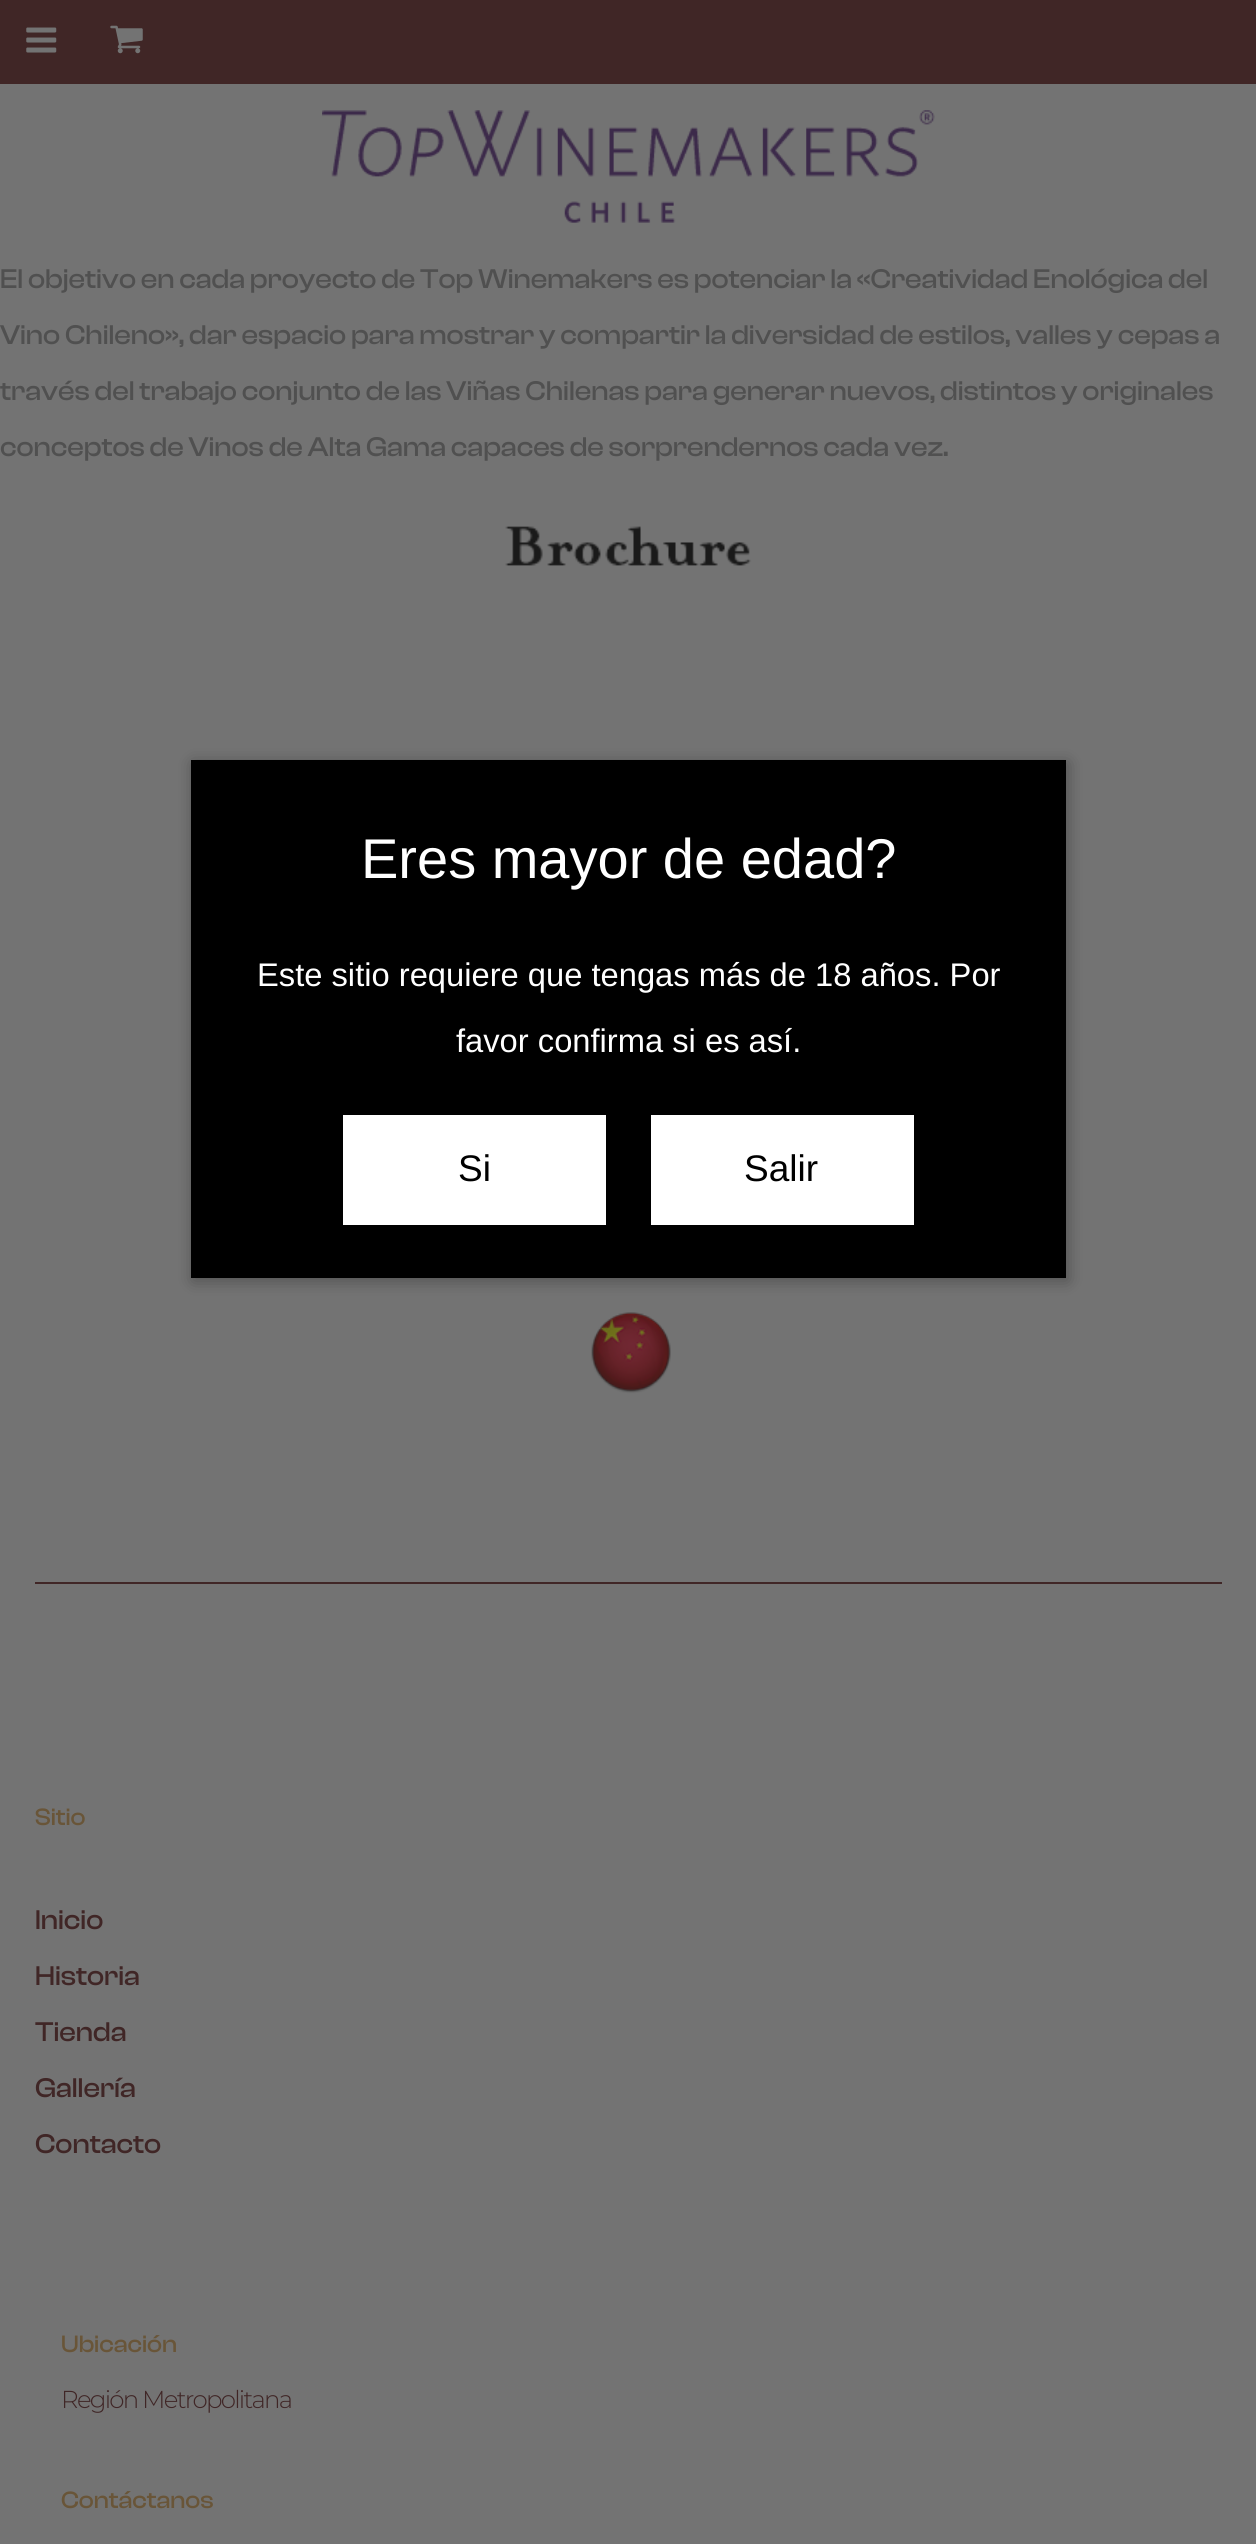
import math
import cairocffi as cairo

surface = cairo.ImageSurface(cairo.FORMAT_RGB24, 1256, 2544)
cr = cairo.Context(surface)
options = cairo.FontOptions()
options.set_hint_metrics(cairo.HINT_METRICS_OFF)
options.set_hint_style(cairo.HINT_STYLE_NONE)
cr.set_font_options(options)
cr.set_miter_limit(4)


def use_color(code):
    cr.set_source_rgb(*(v / 255 for v in bytes.fromhex(code[-6:])))


def spaced_text(x, y, s, letter, word):
    cr.move_to(x, y)
    for ch in s:
        cr.show_text(ch)
        cr.rel_move_to(letter + word * (ch == ' '), 0)


def round_rect(x, y, w, h, r):
    cr.new_sub_path()
    for i, (u, v) in enumerate([(x + w - r, y + h - r), (x + r, y + h - r), (x + r, y + r), (x + w - r, y + r)]):
        cr.arc(u, v, r, i * math.pi / 2, (i + 1) * math.pi / 2)
    cr.close_path()


def shadow(x, y, w, h, r, blur, alpha):
    cr.push_group_with_content(cairo.CONTENT_ALPHA)
    cr.set_operator(cairo.OPERATOR_SOURCE)
    for i in range(15, -16, -2):
        e = blur * i / 6
        if min(w, h) + 2 * e > 0:
            cr.set_source_rgba(0, 0, 0, alpha * math.erfc((i - 1) / 8.5) / 2)
            round_rect(x - e, y - e, w + 2 * e, h + 2 * e, max(0, min(r + e + blur * .6, min(w, h) / 2 + e)))
            cr.fill()
    cr.mask(cr.pop_group())


def picture(path, x, y, w, h):
    cr.save()
    cr.set_source_surface(cairo.ImageSurface.create_from_png(path), x, y)
    cr.rectangle(x, y, w, h)
    cr.fill()
    cr.restore()


use_color("#737373")
cr.paint()
use_color("#402626")
cr.rectangle(0, 0, 1256, 84)
cr.fill()
picture("img1.png", 26, 27, 31, 26)
picture("img2.png", 110, 25, 33, 29)
picture("img3.png", 322, 110, 613, 113)
cr.select_font_face("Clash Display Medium")
cr.set_font_size(28)
use_color("#505050")
cr.move_to(0, 288)
cr.show_text("El objetivo en cada proyecto de Top Winemakers es potenciar la «Creatividad Enológica del")
cr.move_to(0, 344)
cr.show_text("Vino Chileno», dar espacio para mostrar y compartir la diversidad de estilos, valles y cepas a")
cr.move_to(0, 400)
cr.show_text("través del trabajo conjunto de las Viñas Chilenas para generar nuevos, distintos y originales")
cr.move_to(0, 456)
cr.show_text("conceptos de Vinos de Alta Gama capaces de sorprendernos cada vez.")
picture("img4.png", 505, 526, 247, 40)
picture("img5.png", 591, 1312, 80, 82)
use_color("#402626")
cr.rectangle(35, 1582, 1187, 2)
cr.fill()
cr.set_font_size(24.5)
use_color("#695538")
cr.move_to(35, 1825)
cr.show_text("Sitio")
cr.set_font_size(28)
use_color("#402626")
cr.move_to(35, 1929)
cr.show_text("Inicio")
cr.move_to(35, 1985)
cr.show_text("Historia")
cr.move_to(35, 2041)
cr.show_text("Tienda")
cr.move_to(35, 2097)
cr.show_text("Gallería")
cr.move_to(35, 2153)
cr.show_text("Contacto")
cr.set_font_size(24.5)
use_color("#695538")
cr.move_to(61, 2352)
cr.show_text("Ubicación")
cr.select_font_face("Montserrat Light")
use_color("#402626")
spaced_text(61, 2408, "Región Metropolitana", -1.75, 0)
cr.select_font_face("Clash Display Medium")
use_color("#695538")
cr.move_to(61, 2508)
cr.show_text("Contáctanos")
use_color("#000000")
shadow(193, 763, 875, 518, 0, 8, 0.3)
use_color("#000000")
cr.rectangle(191, 760, 875, 518)
cr.fill()
cr.select_font_face("Liberation Sans")
cr.set_font_size(56)
use_color("#ffffff")
cr.move_to(361, 878)
cr.show_text("Eres mayor de edad?")
cr.set_font_size(32.7)
cr.move_to(257, 986)
cr.show_text("Este sitio requiere que tengas más de 18 años. Por")
cr.move_to(456, 1052)
cr.show_text("favor confirma si es así.")
cr.rectangle(343, 1115, 263, 110)
cr.fill()
cr.set_font_size(37)
use_color("#000000")
cr.move_to(458, 1181)
cr.show_text("Si")
use_color("#ffffff")
cr.rectangle(651, 1115, 263, 110)
cr.fill()
use_color("#000000")
cr.move_to(744, 1181)
cr.show_text("Salir")
surface.write_to_png("result.png")
